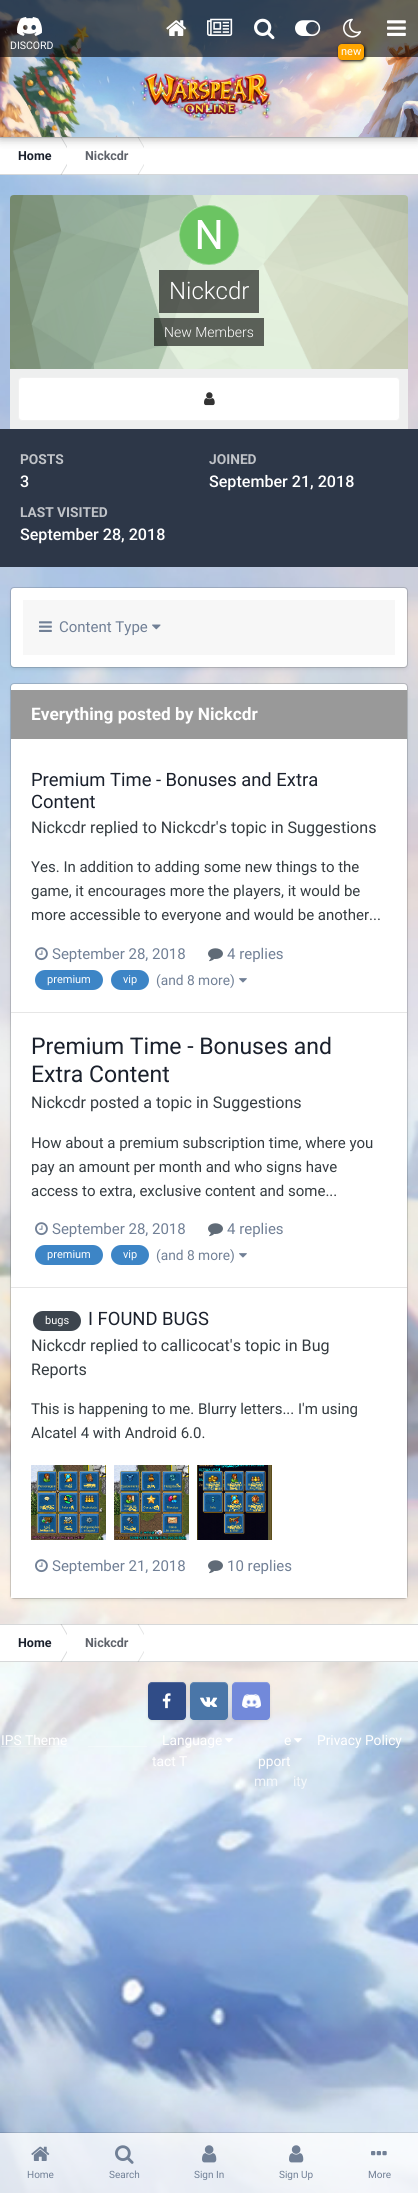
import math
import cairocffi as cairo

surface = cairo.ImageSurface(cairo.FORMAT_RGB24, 418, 2193)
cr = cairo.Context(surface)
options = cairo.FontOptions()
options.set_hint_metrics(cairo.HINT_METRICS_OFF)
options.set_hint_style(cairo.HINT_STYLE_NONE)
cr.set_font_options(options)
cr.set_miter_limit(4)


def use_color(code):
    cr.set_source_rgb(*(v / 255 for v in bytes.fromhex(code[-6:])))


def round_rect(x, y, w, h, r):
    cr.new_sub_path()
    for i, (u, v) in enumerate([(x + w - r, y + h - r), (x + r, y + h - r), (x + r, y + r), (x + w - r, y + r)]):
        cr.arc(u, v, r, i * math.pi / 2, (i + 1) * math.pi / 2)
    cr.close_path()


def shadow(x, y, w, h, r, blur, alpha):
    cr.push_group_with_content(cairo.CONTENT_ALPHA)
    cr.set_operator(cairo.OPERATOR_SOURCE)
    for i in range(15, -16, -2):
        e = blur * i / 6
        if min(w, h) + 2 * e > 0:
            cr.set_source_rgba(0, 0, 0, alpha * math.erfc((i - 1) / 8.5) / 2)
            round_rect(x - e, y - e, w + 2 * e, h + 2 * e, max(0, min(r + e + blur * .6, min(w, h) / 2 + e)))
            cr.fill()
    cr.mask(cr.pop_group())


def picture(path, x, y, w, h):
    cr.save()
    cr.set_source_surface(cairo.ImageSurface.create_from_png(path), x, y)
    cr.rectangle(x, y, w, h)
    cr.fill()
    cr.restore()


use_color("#ffffff")
cr.paint()
picture("img1.png", 0, 175, 418, 2018)
cr.save()
cr.rectangle(0, 137, 67, 38)
cr.clip()
use_color("#d7d8d9")
cr.new_path()
cr.move_to(60.5, 137)
cr.line_to(61.5, 137)
cr.line_to(72.5, 156)
cr.line_to(71.5, 156)
cr.close_path()
cr.move_to(60.5, 175)
cr.line_to(61.5, 175)
cr.line_to(72.5, 156)
cr.line_to(71.5, 156)
cr.close_path()
cr.fill()
cr.restore()
cr.save()
cr.rectangle(67, 137, 77, 38)
cr.clip()
use_color("#e3e4e4")
cr.new_path()
cr.move_to(137.5, 137)
cr.line_to(138.5, 137)
cr.line_to(149.5, 156)
cr.line_to(148.5, 156)
cr.close_path()
cr.move_to(137.5, 175)
cr.line_to(138.5, 175)
cr.line_to(149.5, 156)
cr.line_to(148.5, 156)
cr.close_path()
cr.fill()
cr.restore()
cr.set_source_rgba(0.208, 0.235, 0.255, 0.2)
cr.rectangle(0, 137, 418, 1)
cr.fill()
use_color("#000000")
shadow(0, 1, 418, 137, 0, 5, 0.35)
picture("img2.png", 0, 0, 418, 137)
cr.set_source_rgba(0, 0, 0, 0.6)
cr.rectangle(0, 0, 418, 57)
cr.fill()
picture("img3.png", 166, 20, 21, 16)
picture("img4.png", 207, 18, 26, 18)
picture("img5.png", 254, 18, 21, 22)
picture("img6.png", 295, 20, 26, 16)
picture("img7.png", 387, 20, 19, 16)
picture("img8.png", 17, 17, 25, 19)
cr.select_font_face("Roboto")
cr.set_font_size(10.5)
use_color("#ffffff")
cr.move_to(10, 49)
cr.show_text("DISCORD")
picture("img9.png", 343, 18, 18, 20)
use_color("#000000")
shadow(339, 45, 26, 16, 4, 1.5, 1)
use_color("#ffa500")
round_rect(338, 44, 26, 16, 4)
cr.fill()
cr.set_font_size(11)
use_color("#ffffff")
cr.move_to(341, 55)
cr.show_text("new")
picture("img10.png", 139, 73, 133, 48)
cr.set_source_rgba(0.208, 0.235, 0.255, 0.2)
cr.rectangle(0, 174, 418, 1)
cr.fill()
cr.select_font_face("Roboto", cairo.FONT_SLANT_NORMAL, cairo.FONT_WEIGHT_BOLD)
cr.set_font_size(12.5)
use_color("#1a202c")
cr.move_to(18, 160)
cr.show_text("Home")
use_color("#5f636b")
cr.move_to(85, 160)
cr.show_text("Nickcdr")
use_color("#b8ff99")
cr.new_path()
cr.move_to(14, 195)
cr.line_to(404, 195)
cr.curve_to(406, 195, 408, 197, 408, 199)
cr.line_to(408, 369)
cr.line_to(10, 369)
cr.line_to(10, 199)
cr.curve_to(10, 197, 12, 195, 14, 195)
cr.close_path()
cr.fill()
picture("img11.png", 10, 195, 398, 174)
use_color("#ffffff")
cr.arc(209, 235, 30, 0, 2 * math.pi)
cr.fill()
picture("img12.png", 179, 205, 60, 60)
cr.arc(209, 235, 29.5, 0, 2 * math.pi)
cr.set_source_rgba(1, 1, 1, 0.3)
cr.set_line_width(1)
cr.stroke()
cr.set_source_rgba(0, 0, 0, 0.6)
cr.rectangle(159, 270, 100, 43)
cr.fill()
cr.select_font_face("Roboto Light")
cr.set_font_size(24)
use_color("#ffffff")
cr.move_to(169, 299)
cr.show_text("Nickcdr")
cr.set_source_rgba(0, 0, 0, 0.6)
cr.rectangle(154, 318, 110, 28)
cr.fill()
cr.set_font_size(14)
use_color("#ffffff")
cr.move_to(164, 337)
cr.show_text("New Members")
use_color("#eeefef")
cr.rectangle(10, 369, 398, 60)
cr.fill()
use_color("#ffffff")
round_rect(18, 377, 382, 44, 4)
cr.fill()
round_rect(18.5, 377.5, 381, 43, 3.5)
cr.set_source_rgba(0.2, 0.2, 0.2, 0.07)
cr.stroke()
picture("img13.png", 204, 392, 11, 14)
use_color("#2d3748")
cr.rectangle(0, 429, 418, 138)
cr.fill()
cr.select_font_face("Roboto", cairo.FONT_SLANT_NORMAL, cairo.FONT_WEIGHT_BOLD)
cr.set_font_size(13.75)
use_color("#c0c3c8")
cr.move_to(20, 464)
cr.show_text("POSTS")
cr.select_font_face("Roboto Medium")
cr.set_font_size(16.1)
use_color("#ffffff")
cr.move_to(20, 487)
cr.show_text("3")
cr.select_font_face("Roboto", cairo.FONT_SLANT_NORMAL, cairo.FONT_WEIGHT_BOLD)
cr.set_font_size(13.75)
use_color("#c0c3c8")
cr.move_to(209, 464)
cr.show_text("JOINED")
cr.select_font_face("Roboto Medium")
cr.set_font_size(16.1)
use_color("#ffffff")
cr.move_to(209, 487)
cr.show_text("September 21, 2018")
cr.select_font_face("Roboto", cairo.FONT_SLANT_NORMAL, cairo.FONT_WEIGHT_BOLD)
cr.set_font_size(13.75)
use_color("#c0c3c8")
cr.move_to(20, 517)
cr.show_text("LAST VISITED")
cr.select_font_face("Roboto Medium")
cr.set_font_size(16.1)
use_color("#ffffff")
cr.move_to(20, 540)
cr.show_text("September 28, 2018")
use_color("#000000")
shadow(11, 590, 396, 79, 3, 2, 0.1)
use_color("#ffffff")
round_rect(11, 588, 396, 79, 3)
cr.fill()
round_rect(10.5, 587.5, 397, 80, 3.5)
cr.set_source_rgba(0.208, 0.235, 0.255, 0.2)
cr.stroke()
use_color("#f7f7f7")
cr.rectangle(23, 600, 372, 55)
cr.fill()
picture("img14.png", 39, 621, 13, 11)
cr.select_font_face("Roboto")
cr.set_font_size(15)
use_color("#718096")
cr.move_to(59, 632)
cr.show_text("Content Type")
picture("img15.png", 152, 624, 9, 6)
use_color("#000000")
shadow(11, 686, 396, 914, 3, 2, 0.1)
use_color("#ffffff")
round_rect(11, 684, 396, 914, 3)
cr.fill()
round_rect(10.5, 683.5, 397, 915, 3.5)
cr.set_source_rgba(0.208, 0.235, 0.255, 0.2)
cr.stroke()
use_color("#999999")
cr.rectangle(11, 690, 396, 49)
cr.fill()
cr.select_font_face("Roboto", cairo.FONT_SLANT_NORMAL, cairo.FONT_WEIGHT_BOLD)
cr.set_font_size(17.25)
use_color("#ffffff")
cr.move_to(31, 720)
cr.show_text("Everything posted by Nickcdr")
use_color("#e6e6e6")
cr.rectangle(11, 1012, 396, 1)
cr.fill()
cr.select_font_face("Roboto")
cr.set_font_size(18.4)
use_color("#1a202c")
cr.move_to(31, 786)
cr.show_text("Premium Time - Bonuses and Extra")
cr.move_to(31, 808)
cr.show_text("Content")
cr.set_font_size(16.1)
use_color("#353c41")
cr.move_to(31, 833)
cr.show_text("Nickcdr replied to Nickcdr's topic in Suggestions")
cr.set_font_size(15)
cr.move_to(31, 872)
cr.show_text("Yes. In addition to adding some new things to the")
cr.move_to(31, 896)
cr.show_text("game, it encourages more the players, it would be")
cr.move_to(31, 920)
cr.show_text("more accessible to everyone and would be another...")
picture("img16.png", 35, 947, 13, 14)
use_color("#718096")
cr.move_to(52, 959)
cr.show_text("September 28, 2018")
picture("img17.png", 208, 948, 15, 14)
cr.move_to(227, 959)
cr.show_text("4 replies")
use_color("#3d85c6")
round_rect(35, 970, 68, 20, 10)
cr.fill()
cr.set_font_size(11)
use_color("#ffffff")
cr.move_to(47, 983)
cr.show_text("premium")
use_color("#3d85c6")
round_rect(111, 970, 38, 20, 10)
cr.fill()
use_color("#ffffff")
cr.move_to(123, 983)
cr.show_text("vip")
cr.set_font_size(13.75)
use_color("#718096")
cr.move_to(156, 985)
cr.show_text("(and 8 more)")
picture("img18.png", 239, 978, 8, 5)
use_color("#e6e6e6")
cr.rectangle(11, 1287, 396, 1)
cr.fill()
cr.set_font_size(23)
use_color("#1a202c")
cr.move_to(31, 1054)
cr.show_text("Premium Time - Bonuses and")
cr.move_to(31, 1082)
cr.show_text("Extra Content")
cr.set_font_size(16.1)
use_color("#353c41")
cr.move_to(31, 1108)
cr.show_text("Nickcdr posted a topic in Suggestions")
cr.set_font_size(15)
cr.move_to(31, 1148)
cr.show_text("How about a premium subscription time, where you")
cr.move_to(31, 1172)
cr.show_text("pay an amount per month and who signs have")
cr.move_to(31, 1196)
cr.show_text("access to extra, exclusive content and some...")
picture("img16.png", 35, 1222, 13, 14)
use_color("#718096")
cr.move_to(52, 1234)
cr.show_text("September 28, 2018")
picture("img17.png", 208, 1223, 15, 14)
cr.move_to(227, 1234)
cr.show_text("4 replies")
use_color("#3d85c6")
round_rect(35, 1245, 68, 20, 10)
cr.fill()
cr.set_font_size(11)
use_color("#ffffff")
cr.move_to(47, 1258)
cr.show_text("premium")
use_color("#3d85c6")
round_rect(111, 1245, 38, 20, 10)
cr.fill()
use_color("#ffffff")
cr.move_to(123, 1258)
cr.show_text("vip")
cr.set_font_size(13.75)
use_color("#718096")
cr.move_to(156, 1260)
cr.show_text("(and 8 more)")
picture("img18.png", 239, 1253, 8, 5)
use_color("#ffffff")
cr.rectangle(11, 1595, 396, 3)
cr.fill()
use_color("#3d454e")
round_rect(33, 1311, 48, 20, 10)
cr.fill()
cr.set_font_size(11)
use_color("#ffffff")
cr.move_to(45, 1324)
cr.show_text("bugs")
cr.set_font_size(18.4)
use_color("#1a202c")
cr.move_to(88, 1325)
cr.show_text("I FOUND BUGS")
cr.set_font_size(16.1)
use_color("#353c41")
cr.move_to(31, 1351)
cr.show_text("Nickcdr replied to callicocat's topic in Bug")
cr.move_to(31, 1375)
cr.show_text("Reports")
cr.set_font_size(15)
cr.move_to(31, 1414)
cr.show_text("This is happening to me. Blurry letters... I'm using")
cr.move_to(31, 1438)
cr.show_text("Alcatel 4 with Android 6.0.")
picture("img19.png", 31, 1465, 75, 75)
picture("img20.png", 114, 1465, 75, 75)
picture("img21.png", 197, 1465, 75, 75)
picture("img16.png", 35, 1559, 13, 14)
use_color("#718096")
cr.move_to(52, 1571)
cr.show_text("September 21, 2018")
picture("img17.png", 208, 1560, 15, 14)
cr.move_to(227, 1571)
cr.show_text("10 replies")
use_color("#ffffff")
cr.rectangle(0, 1624, 418, 38)
cr.fill()
cr.save()
cr.rectangle(0, 1624, 67, 38)
cr.clip()
use_color("#d7d8d9")
cr.new_path()
cr.move_to(60.5, 1624)
cr.line_to(61.5, 1624)
cr.line_to(72.5, 1643)
cr.line_to(71.5, 1643)
cr.close_path()
cr.move_to(60.5, 1662)
cr.line_to(61.5, 1662)
cr.line_to(72.5, 1643)
cr.line_to(71.5, 1643)
cr.close_path()
cr.fill()
cr.restore()
cr.save()
cr.rectangle(67, 1624, 77, 38)
cr.clip()
use_color("#e3e4e4")
cr.new_path()
cr.move_to(137.5, 1624)
cr.line_to(138.5, 1624)
cr.line_to(149.5, 1643)
cr.line_to(148.5, 1643)
cr.close_path()
cr.move_to(137.5, 1662)
cr.line_to(138.5, 1662)
cr.line_to(149.5, 1643)
cr.line_to(148.5, 1643)
cr.close_path()
cr.fill()
cr.restore()
cr.set_source_rgba(0.208, 0.235, 0.255, 0.2)
cr.rectangle(0, 1624, 418, 1)
cr.fill()
cr.rectangle(0, 1661, 418, 1)
cr.fill()
cr.select_font_face("Roboto", cairo.FONT_SLANT_NORMAL, cairo.FONT_WEIGHT_BOLD)
cr.set_font_size(12.5)
use_color("#1a202c")
cr.move_to(18, 1647)
cr.show_text("Home")
use_color("#5f636b")
cr.move_to(85, 1647)
cr.show_text("Nickcdr")
use_color("#000000")
shadow(148, 1683, 38, 38, 4, 1.5, 0.1)
use_color("#304c87")
round_rect(148, 1682, 38, 38, 4)
cr.fill()
cr.set_source_rgba(1, 1, 1, 0.15)
cr.new_path()
cr.move_to(152, 1683)
cr.curve_to(150, 1683, 148, 1685, 148, 1687)
cr.curve_to(148, 1681, 152.5, 1682, 157, 1682)
cr.line_to(177, 1682)
cr.curve_to(181.5, 1682, 186, 1681, 186, 1687)
cr.curve_to(186, 1685, 184, 1683, 182, 1683)
cr.close_path()
cr.fill()
picture("img22.png", 162, 1693, 9, 16)
use_color("#000000")
shadow(190, 1683, 38, 38, 4, 1.5, 0.1)
use_color("#4a76a8")
round_rect(190, 1682, 38, 38, 4)
cr.fill()
cr.set_source_rgba(1, 1, 1, 0.15)
cr.new_path()
cr.move_to(194, 1683)
cr.curve_to(192, 1683, 190, 1685, 190, 1687)
cr.curve_to(190, 1681, 194.5, 1682, 199, 1682)
cr.line_to(219, 1682)
cr.curve_to(223.5, 1682, 228, 1681, 228, 1687)
cr.curve_to(228, 1685, 226, 1683, 224, 1683)
cr.close_path()
cr.fill()
picture("img23.png", 200, 1697, 18, 10)
use_color("#000000")
shadow(232, 1683, 38, 38, 4, 1.5, 0.1)
use_color("#7289da")
round_rect(232, 1682, 38, 38, 4)
cr.fill()
cr.set_source_rgba(1, 1, 1, 0.15)
cr.new_path()
cr.move_to(236, 1683)
cr.curve_to(234, 1683, 232, 1685, 232, 1687)
cr.curve_to(232, 1681, 236.5, 1682, 241, 1682)
cr.line_to(261, 1682)
cr.curve_to(265.5, 1682, 270, 1681, 270, 1687)
cr.curve_to(270, 1685, 268, 1683, 266, 1683)
cr.close_path()
cr.fill()
picture("img24.png", 242, 1694, 19, 14)
cr.select_font_face("Roboto")
cr.set_font_size(13.75)
use_color("#ffffff")
cr.move_to(1, 1745)
cr.show_text("IPS Theme")
cr.set_source_rgba(1, 1, 1, 0.3)
cr.rectangle(1, 1746, 66, 1)
cr.fill()
cr.rectangle(88, 1746, 59, 1)
cr.fill()
use_color("#ffffff")
cr.move_to(162, 1745)
cr.show_text("Language")
picture("img25.png", 225, 1738, 8, 5)
cr.move_to(284, 1745)
cr.show_text("e")
picture("img26.png", 294, 1738, 8, 5)
cr.move_to(317, 1745)
cr.show_text("Privacy Policy")
cr.move_to(152, 1766)
cr.show_text("tact T")
cr.move_to(258, 1766)
cr.show_text("pport")
use_color("#f3f7fb")
cr.move_to(254, 1786)
cr.show_text("mm")
cr.move_to(293, 1786)
cr.show_text("ity")
cr.set_source_rgba(0, 0, 0, 0.1)
cr.rectangle(0, 2132, 418, 1)
cr.fill()
cr.set_source_rgba(1, 1, 1, 0.8)
cr.rectangle(0, 2133, 418, 60)
cr.fill()
picture("img27.png", 31, 2146, 19, 15)
cr.set_font_size(10)
use_color("#718096")
cr.move_to(27, 2178)
cr.show_text("Home")
picture("img28.png", 115, 2145, 19, 19)
cr.move_to(109, 2178)
cr.show_text("Search")
picture("img29.png", 202, 2145, 15, 18)
cr.move_to(194, 2178)
cr.show_text("Sign In")
picture("img30.png", 289, 2145, 15, 18)
cr.move_to(279, 2178)
cr.show_text("Sign Up")
picture("img31.png", 371, 2151, 16, 5)
cr.move_to(368, 2178)
cr.show_text("More")
surface.write_to_png("result.png")
